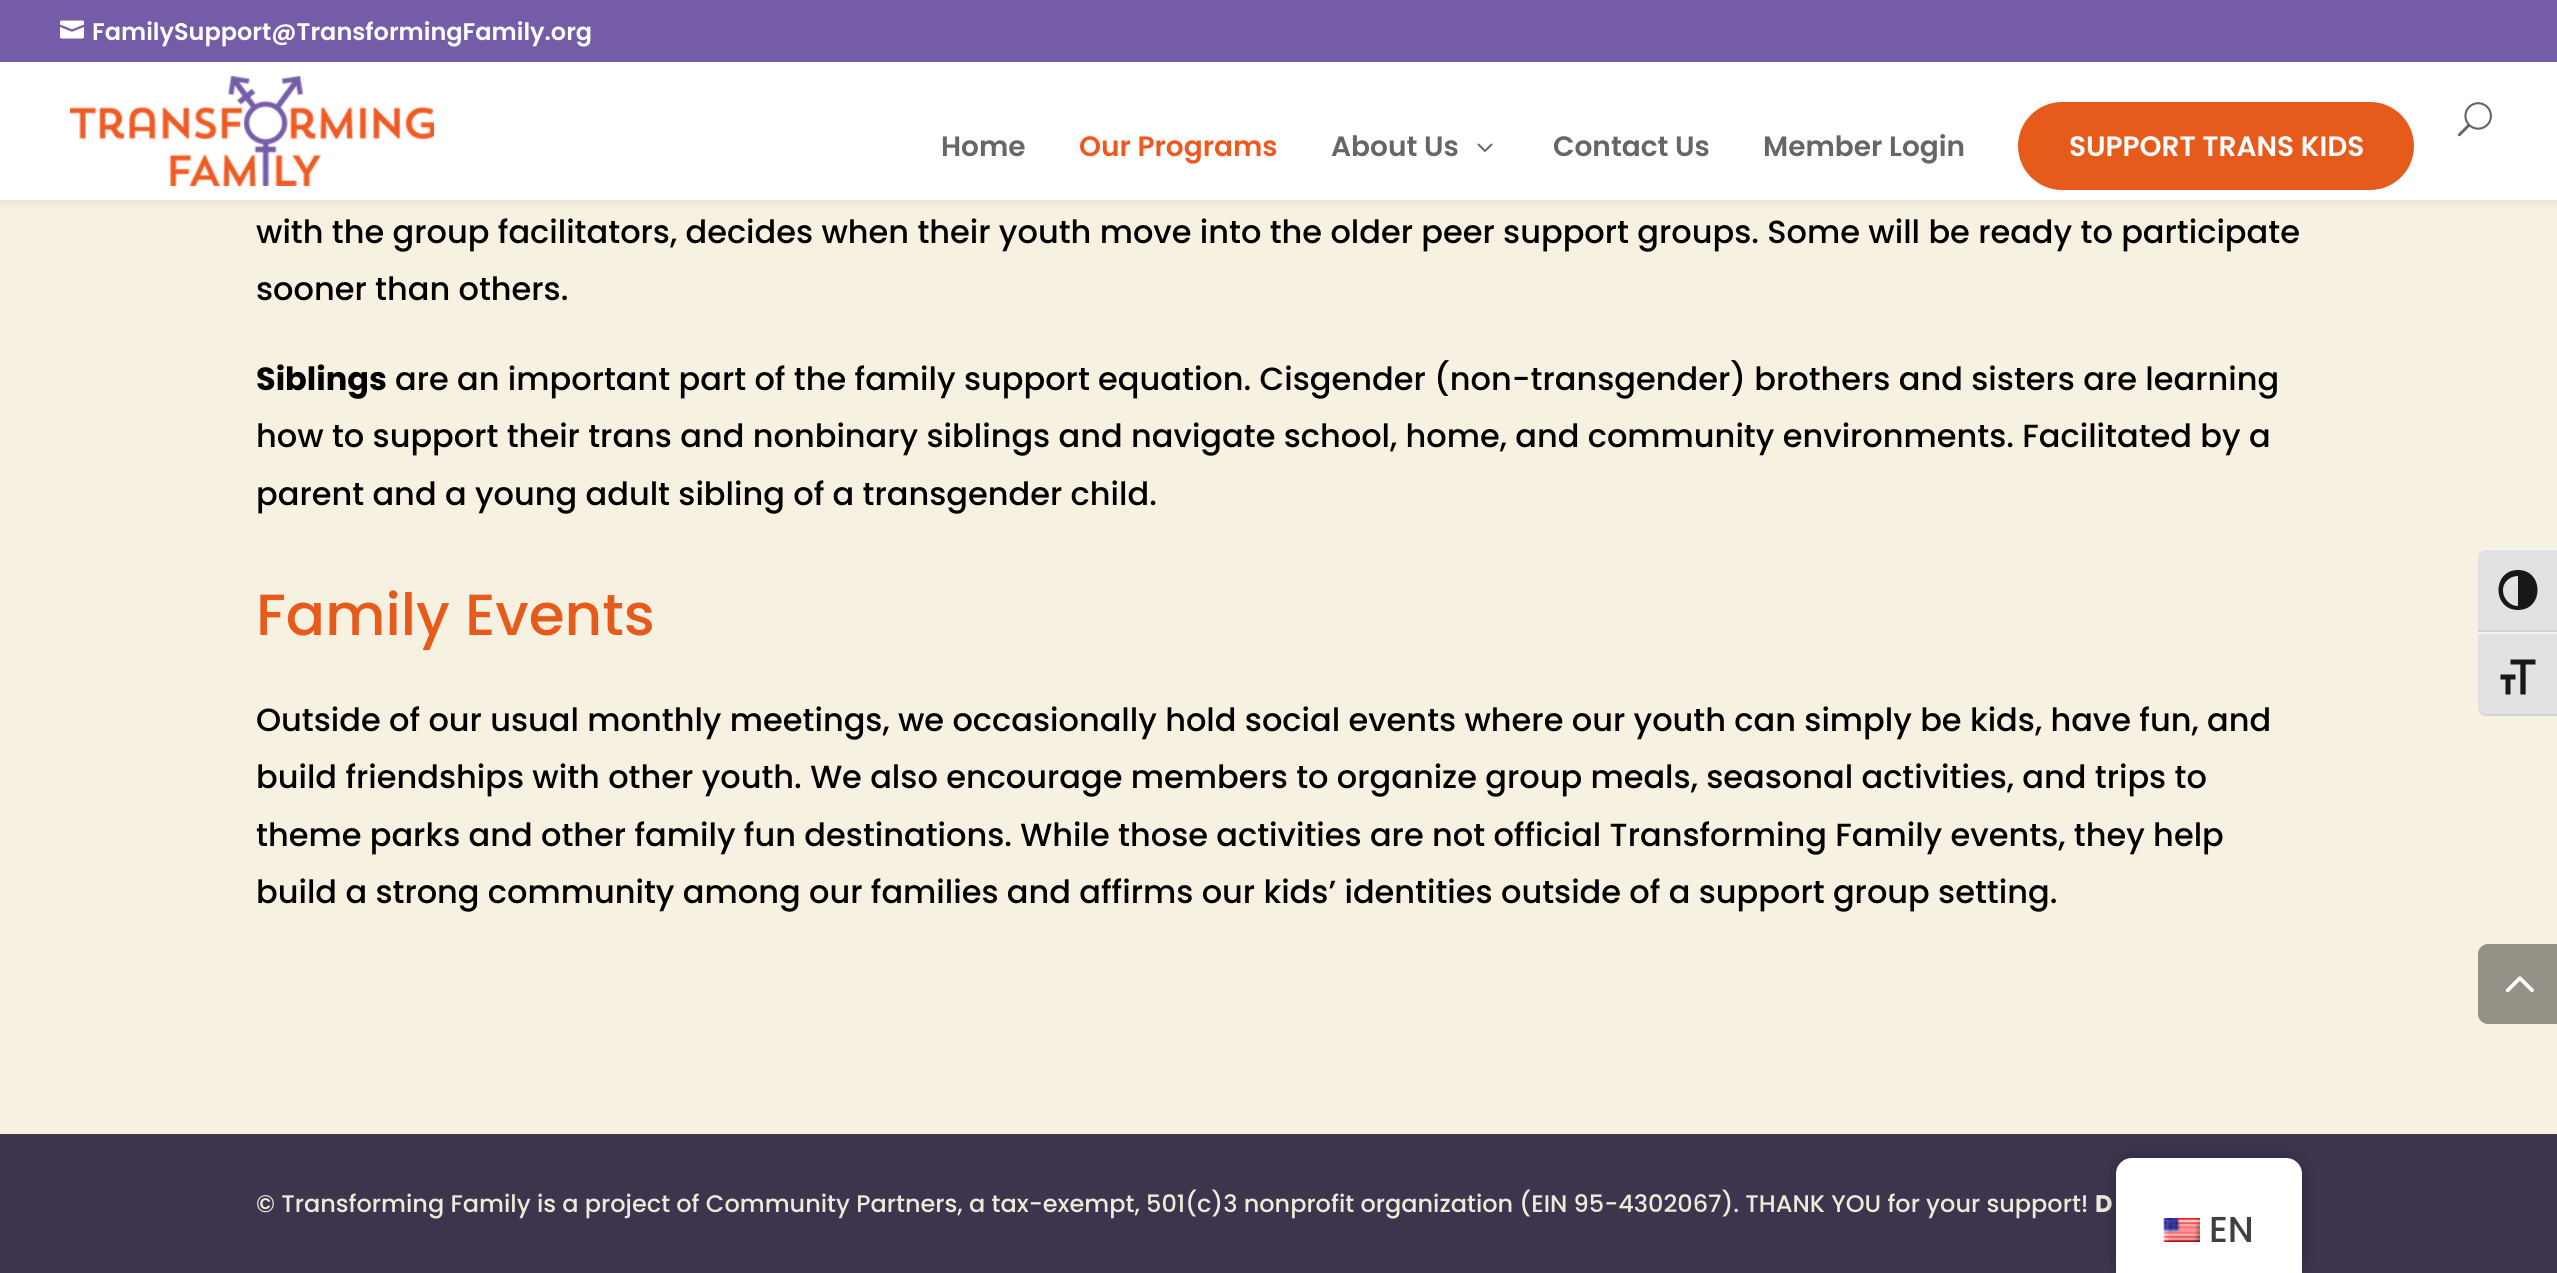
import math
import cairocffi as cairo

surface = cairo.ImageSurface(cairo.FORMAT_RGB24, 2557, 1273)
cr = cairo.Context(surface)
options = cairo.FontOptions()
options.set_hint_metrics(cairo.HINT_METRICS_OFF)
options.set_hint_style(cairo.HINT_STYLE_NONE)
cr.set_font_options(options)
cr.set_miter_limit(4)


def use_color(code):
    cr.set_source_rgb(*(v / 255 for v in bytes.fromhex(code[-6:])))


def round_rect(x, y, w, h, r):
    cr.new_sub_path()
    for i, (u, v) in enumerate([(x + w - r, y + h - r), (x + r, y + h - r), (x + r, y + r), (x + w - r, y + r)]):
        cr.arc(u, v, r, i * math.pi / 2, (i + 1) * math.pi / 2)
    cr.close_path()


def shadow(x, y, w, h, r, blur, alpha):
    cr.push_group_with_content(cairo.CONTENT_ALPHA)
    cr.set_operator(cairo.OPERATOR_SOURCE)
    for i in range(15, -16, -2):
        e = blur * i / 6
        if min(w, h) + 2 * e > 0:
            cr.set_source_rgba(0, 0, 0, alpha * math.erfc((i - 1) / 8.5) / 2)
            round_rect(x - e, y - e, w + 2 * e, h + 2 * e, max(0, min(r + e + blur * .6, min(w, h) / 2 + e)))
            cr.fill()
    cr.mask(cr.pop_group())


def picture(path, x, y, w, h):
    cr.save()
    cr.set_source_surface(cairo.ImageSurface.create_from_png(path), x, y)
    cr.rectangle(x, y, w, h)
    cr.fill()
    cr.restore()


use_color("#f7f1e1")
cr.paint()
use_color("#000000")
shadow(0, 62, 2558, 138, 0, 7, 0.1)
use_color("#745ca8")
cr.rectangle(0, 0, 2557, 62)
cr.fill()
picture("img1.png", 60, 20, 24, 19)
cr.select_font_face("Poppins SemiBold")
cr.set_font_size(24)
use_color("#ffffff")
cr.move_to(92, 40)
cr.show_text("FamilySupport@TransformingFamily.org")
cr.rectangle(0, 62, 2557, 138)
cr.fill()
picture("img2.png", 70, 76, 364, 110)
picture("img3.png", 2457, 102, 35, 35)
cr.set_font_size(28)
use_color("#666666")
cr.move_to(941, 156)
cr.show_text("Home")
use_color("#f05820")
cr.move_to(1079, 156)
cr.show_text("Our Programs")
use_color("#666666")
cr.move_to(1331, 156)
cr.show_text("About Us")
picture("img4.png", 1477, 143, 16, 9)
cr.move_to(1553, 156)
cr.show_text("Contact Us")
cr.move_to(1763, 156)
cr.show_text("Member Login")
use_color("#e65a1b")
round_rect(2018, 102, 396, 88, 44)
cr.fill()
use_color("#ffffff")
cr.move_to(2069, 156)
cr.show_text("SUPPORT TRANS KIDS")
cr.select_font_face("Poppins Medium")
cr.set_font_size(32)
use_color("#000000")
cr.move_to(256, 243)
cr.show_text("with the group facilitators, decides when their youth move into the older peer support groups. Some will be ready to participate")
cr.move_to(256, 300)
cr.show_text("sooner than others.")
cr.select_font_face("Poppins", cairo.FONT_SLANT_NORMAL, cairo.FONT_WEIGHT_BOLD)
cr.move_to(256, 390)
cr.show_text("Siblings")
cr.select_font_face("Poppins Medium")
cr.move_to(395, 390)
cr.show_text("are an important part of the family support equation. Cisgender (non-transgender) brothers and sisters are learning")
cr.move_to(256, 447)
cr.show_text("how to support their trans and nonbinary siblings and navigate school, home, and community environments. Facilitated by a")
cr.move_to(256, 505)
cr.show_text("parent and a young adult sibling of a transgender child.")
cr.set_font_size(58)
use_color("#e65a1b")
cr.move_to(256, 635)
cr.show_text("Family Events")
cr.set_font_size(32)
use_color("#000000")
cr.move_to(256, 731)
cr.show_text("Outside of our usual monthly meetings, we occasionally hold social events where our youth can simply be kids, have fun, and")
cr.move_to(256, 788)
cr.show_text("build friendships with other youth. We also encourage members to organize group meals, seasonal activities, and trips to")
cr.move_to(256, 846)
cr.show_text("theme parks and other family fun destinations. While those activities are not official Transforming Family events, they help")
cr.move_to(256, 903)
cr.show_text("build a strong community among our families and affirms our kids’ identities outside of a support group setting.")
use_color("#949187")
cr.new_path()
cr.move_to(2488, 944)
cr.line_to(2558, 944)
cr.line_to(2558, 1024)
cr.line_to(2488, 1024)
cr.curve_to(2482.5, 1024, 2478, 1019.5, 2478, 1014)
cr.line_to(2478, 954)
cr.curve_to(2478, 948.5, 2482.5, 944, 2488, 944)
cr.close_path()
cr.fill()
picture("img5.png", 2505, 976, 29, 17)
use_color("#3c354d")
cr.rectangle(0, 1134, 2557, 139)
cr.fill()
cr.set_font_size(24)
use_color("#eeebd9")
cr.move_to(256, 1212)
cr.show_text("© Transforming Family is a project of Community Partners, a tax-exempt, 501(c)3 nonprofit organization (EIN 95-4302067). THANK YOU for your support!")
cr.select_font_face("Poppins", cairo.FONT_SLANT_NORMAL, cairo.FONT_WEIGHT_BOLD)
cr.move_to(2095, 1212)
cr.show_text("D")
use_color("#e2e2e2")
cr.new_path()
cr.move_to(2486, 548)
cr.line_to(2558, 548)
cr.line_to(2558, 632)
cr.line_to(2478, 632)
cr.line_to(2478, 556)
cr.curve_to(2478, 551.5, 2481.5, 548, 2486, 548)
cr.close_path()
cr.fill()
use_color("#f5f5f5")
cr.new_path()
cr.move_to(2486, 550)
cr.line_to(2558, 550)
cr.line_to(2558, 548)
cr.line_to(2486, 548)
cr.curve_to(2482, 548, 2478, 552, 2478, 556)
cr.curve_to(2478, 553, 2482, 550, 2486, 550)
cr.close_path()
cr.fill()
use_color("#d2d2d2")
cr.rectangle(2478, 630, 79, 2)
cr.fill()
use_color("#181818")
cr.new_path()
cr.move_to(2518, 570)
cr.curve_to(2492, 570, 2492, 610, 2518, 610)
cr.curve_to(2544, 610, 2544, 570, 2518, 570)
cr.close_path()
cr.move_to(2503, 590)
cr.curve_to(2503, 582, 2510, 576, 2518, 576)
cr.line_to(2518, 606)
cr.curve_to(2510, 606, 2503, 599, 2503, 590)
cr.close_path()
cr.fill()
use_color("#e2e2e2")
cr.new_path()
cr.move_to(2478, 632)
cr.line_to(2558, 632)
cr.line_to(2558, 716)
cr.line_to(2486, 716)
cr.curve_to(2481.5, 716, 2478, 712.5, 2478, 708)
cr.close_path()
cr.fill()
use_color("#f5f5f5")
cr.rectangle(2478, 632, 79, 2)
cr.fill()
use_color("#d2d2d2")
cr.new_path()
cr.move_to(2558, 716)
cr.line_to(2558, 714)
cr.line_to(2486, 714)
cr.curve_to(2482, 714, 2478, 711, 2478, 708)
cr.curve_to(2478, 712, 2482, 716, 2486, 716)
cr.close_path()
cr.fill()
picture("img6.png", 2500, 659, 36, 36)
use_color("#000000")
shadow(2116, 1158, 186, 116, 16, 8, 0.25)
use_color("#ffffff")
cr.new_path()
cr.move_to(2132, 1158)
cr.line_to(2286, 1158)
cr.curve_to(2295, 1158, 2302, 1165, 2302, 1174)
cr.line_to(2302, 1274)
cr.line_to(2116, 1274)
cr.line_to(2116, 1174)
cr.curve_to(2116, 1165, 2123, 1158, 2132, 1158)
cr.close_path()
cr.fill()
picture("img7.png", 2163, 1218, 37, 24)
cr.select_font_face("Poppins Medium")
cr.set_font_size(36)
use_color("#404040")
cr.move_to(2209, 1242)
cr.show_text("EN")
surface.write_to_png("result.png")
